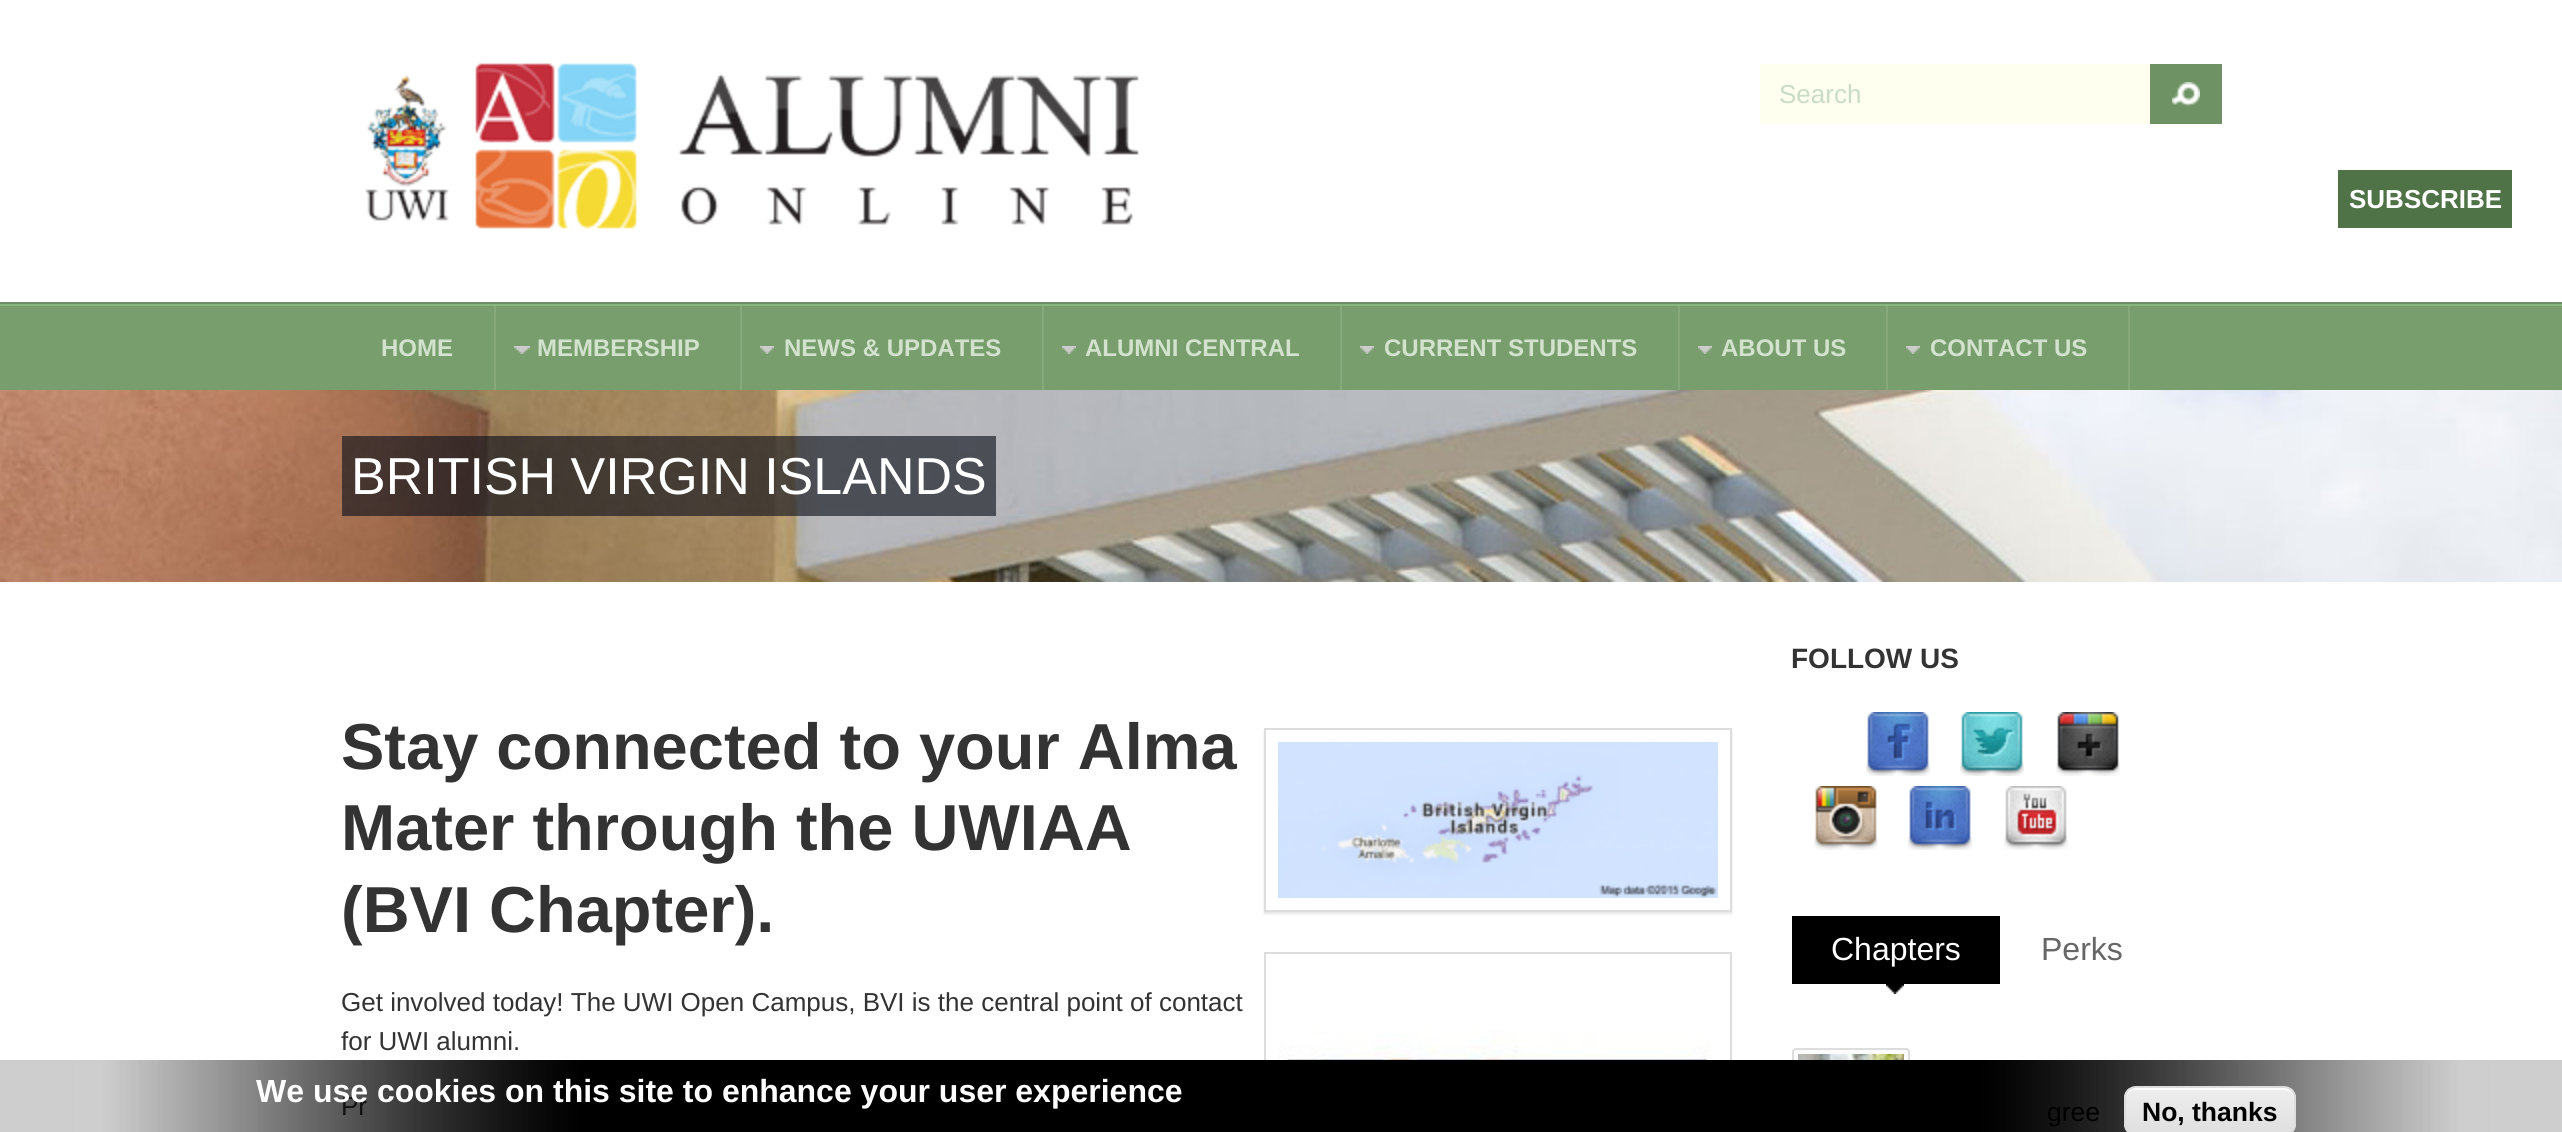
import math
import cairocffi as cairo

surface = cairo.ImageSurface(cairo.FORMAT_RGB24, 2562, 1132)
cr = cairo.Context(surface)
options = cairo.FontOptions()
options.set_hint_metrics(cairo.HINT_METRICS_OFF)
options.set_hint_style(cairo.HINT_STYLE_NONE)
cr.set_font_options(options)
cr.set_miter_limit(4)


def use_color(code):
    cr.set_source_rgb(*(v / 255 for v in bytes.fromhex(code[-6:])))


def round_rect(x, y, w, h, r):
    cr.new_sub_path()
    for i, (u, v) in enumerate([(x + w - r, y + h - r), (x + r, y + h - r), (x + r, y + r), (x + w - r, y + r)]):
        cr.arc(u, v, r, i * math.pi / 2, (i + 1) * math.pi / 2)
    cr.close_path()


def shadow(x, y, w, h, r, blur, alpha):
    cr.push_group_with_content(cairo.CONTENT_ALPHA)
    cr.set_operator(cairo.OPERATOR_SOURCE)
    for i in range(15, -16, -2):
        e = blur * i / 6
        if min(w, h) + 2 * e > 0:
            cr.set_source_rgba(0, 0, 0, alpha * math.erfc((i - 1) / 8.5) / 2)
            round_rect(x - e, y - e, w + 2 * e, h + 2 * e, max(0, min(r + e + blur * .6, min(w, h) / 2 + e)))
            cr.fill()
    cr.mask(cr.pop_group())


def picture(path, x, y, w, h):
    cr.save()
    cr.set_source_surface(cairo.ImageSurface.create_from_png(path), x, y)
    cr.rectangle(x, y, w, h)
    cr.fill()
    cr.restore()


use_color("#ffffff")
cr.paint()
use_color("#6e8f66")
cr.rectangle(0, 302, 2562, 2)
cr.fill()
picture("img1.png", 365, 63, 774, 166)
use_color("#fffff0")
cr.rectangle(1760, 64, 390, 60)
cr.fill()
cr.select_font_face("Liberation Sans")
cr.set_font_size(26)
use_color("#c8dcc3")
cr.move_to(1779, 103)
cr.show_text("Search")
use_color("#6e9264")
cr.rectangle(2150, 64, 72, 60)
cr.fill()
picture("img2.png", 2172, 82, 28, 25)
use_color("#4f7246")
cr.rectangle(2338, 170, 174, 58)
cr.fill()
cr.select_font_face("Liberation Sans", cairo.FONT_SLANT_NORMAL, cairo.FONT_WEIGHT_BOLD)
use_color("#ffffff")
cr.move_to(2349, 208)
cr.show_text("SUBSCRIBE")
use_color("#779e6c")
cr.rectangle(0, 306, 2562, 84)
cr.fill()
use_color("#8ab47f")
cr.rectangle(0, 304, 2562, 2)
cr.fill()
use_color("#85a97a")
cr.rectangle(494, 306, 2, 84)
cr.fill()
cr.set_font_size(24)
use_color("#d2e2cd")
cr.move_to(381, 356)
cr.show_text("HOME")
use_color("#85a97a")
cr.rectangle(740, 306, 2, 84)
cr.fill()
picture("img3.png", 514, 346, 16, 8)
use_color("#d2e2cd")
cr.move_to(537, 356)
cr.show_text("MEMBERSHIP")
use_color("#85a97a")
cr.rectangle(1042, 306, 2, 84)
cr.fill()
picture("img4.png", 760, 346, 14, 8)
use_color("#d2e2cd")
cr.move_to(784, 356)
cr.show_text("NEWS & UPDATES")
use_color("#85a97a")
cr.rectangle(1340, 306, 2, 84)
cr.fill()
picture("img4.png", 1062, 346, 14, 8)
use_color("#d2e2cd")
cr.move_to(1085, 356)
cr.show_text("ALUMNI CENTRAL")
use_color("#85a97a")
cr.rectangle(1678, 306, 2, 84)
cr.fill()
picture("img4.png", 1360, 346, 14, 8)
use_color("#d2e2cd")
cr.move_to(1384, 356)
cr.show_text("CURRENT STUDENTS")
use_color("#85a97a")
cr.rectangle(1886, 306, 2, 84)
cr.fill()
picture("img4.png", 1698, 346, 14, 8)
use_color("#d2e2cd")
cr.move_to(1721, 356)
cr.show_text("ABOUT US")
use_color("#85a97a")
cr.rectangle(2128, 306, 2, 84)
cr.fill()
picture("img4.png", 1906, 346, 14, 8)
use_color("#d2e2cd")
cr.move_to(1930, 356)
cr.show_text("CONTACT US")
picture("img5.png", 0, 390, 2562, 192)
cr.set_source_rgba(0.063, 0.078, 0.11, 0.64)
cr.rectangle(342, 436, 654, 80)
cr.fill()
cr.select_font_face("Liberation Sans")
cr.set_font_size(52)
use_color("#ffffff")
cr.move_to(351, 494)
cr.show_text("BRITISH VIRGIN ISLANDS")
cr.select_font_face("Liberation Sans", cairo.FONT_SLANT_NORMAL, cairo.FONT_WEIGHT_BOLD)
cr.set_font_size(65)
use_color("#333333")
cr.move_to(341, 769)
cr.show_text("Stay connected to your Alma")
cr.move_to(341, 850)
cr.show_text("Mater through the UWIAA")
cr.move_to(341, 932)
cr.show_text("(BVI Chapter).")
cr.select_font_face("Liberation Sans")
cr.set_font_size(26)
cr.move_to(341, 1011)
cr.show_text("Get involved today! The UWI Open Campus, BVI is the central point of contact")
cr.move_to(341, 1050)
cr.show_text("for UWI alumni.")
cr.move_to(341, 1115)
cr.show_text("Pr")
cr.save()
cr.set_fill_rule(cairo.FILL_RULE_EVEN_ODD)
cr.new_path()
cr.move_to(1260, 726)
cr.line_to(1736, 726)
cr.line_to(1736, 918)
cr.line_to(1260, 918)
cr.close_path()
cr.move_to(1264, 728)
cr.line_to(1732, 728)
cr.line_to(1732, 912)
cr.line_to(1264, 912)
cr.close_path()
cr.clip()
use_color("#000000")
shadow(1264, 730, 468, 184, 0, 1, 0.1)
cr.restore()
cr.rectangle(1265, 729, 466, 182)
use_color("#dddddd")
cr.stroke()
picture("img6.png", 1278, 742, 440, 156)
cr.rectangle(1265, 953, 466, 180)
cr.stroke()
picture("img7.png", 1278, 1030, 432, 30)
cr.select_font_face("Liberation Sans", cairo.FONT_SLANT_NORMAL, cairo.FONT_WEIGHT_BOLD)
cr.set_font_size(28)
use_color("#333333")
cr.move_to(1791, 668)
cr.show_text("FOLLOW US")
picture("img8.png", 1866, 712, 64, 64)
picture("img9.png", 1960, 712, 64, 64)
picture("img10.png", 2056, 712, 64, 64)
picture("img11.png", 1814, 786, 64, 64)
picture("img12.png", 1908, 786, 64, 64)
picture("img13.png", 2004, 786, 64, 64)
picture("img14.png", 1886, 984, 18, 10)
use_color("#000000")
cr.rectangle(1792, 916, 208, 68)
cr.fill()
cr.select_font_face("Liberation Sans")
cr.set_font_size(32)
use_color("#ffffff")
cr.move_to(1831, 960)
cr.show_text("Chapters")
use_color("#666666")
cr.move_to(2041, 960)
cr.show_text("Perks")
use_color("#fcfcfc")
round_rect(1793, 1049, 116, 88, 3)
cr.fill_preserve()
use_color("#dddddd")
cr.stroke()
picture("img15.png", 1798, 1054, 106, 6)
picture("img16.png", 0, 1060, 2562, 72)
cr.select_font_face("Liberation Sans", cairo.FONT_SLANT_NORMAL, cairo.FONT_WEIGHT_BOLD)
use_color("#ffffff")
cr.move_to(256, 1102)
cr.show_text("We use cookies on this site to enhance your user experience")
cr.select_font_face("Liberation Sans")
cr.set_font_size(26.5)
use_color("#000000")
cr.move_to(2047, 1121)
cr.show_text("gree")
cr.save()
round_rect(2124, 1086, 172, 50, 12)
cr.clip()
gradient = cairo.LinearGradient(2210, 1088, 2210, 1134)
gradient.add_color_stop_rgba(0.05, 0.929, 0.929, 0.929, 1)
gradient.add_color_stop_rgba(1, 0.875, 0.875, 0.875, 1)
cr.set_source(gradient)
cr.rectangle(2124, 1088, 172, 44)
cr.fill()
cr.restore()
use_color("#ffffff")
cr.new_path()
cr.move_to(2136, 1090)
cr.line_to(2284, 1090)
cr.curve_to(2290, 1090, 2294, 1094, 2294, 1100)
cr.line_to(2294, 1098)
cr.curve_to(2294, 1092, 2290, 1088, 2284, 1088)
cr.line_to(2136, 1088)
cr.curve_to(2130, 1088, 2126, 1092, 2126, 1098)
cr.line_to(2126, 1100)
cr.curve_to(2126, 1094, 2130, 1090, 2136, 1090)
cr.close_path()
cr.fill()
round_rect(2125, 1087, 170, 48, 11)
use_color("#dcdcdc")
cr.stroke()
cr.select_font_face("Liberation Sans", cairo.FONT_SLANT_NORMAL, cairo.FONT_WEIGHT_BOLD)
use_color("#000000")
cr.move_to(2142, 1121)
cr.show_text("No, thanks")
surface.write_to_png("result.png")
